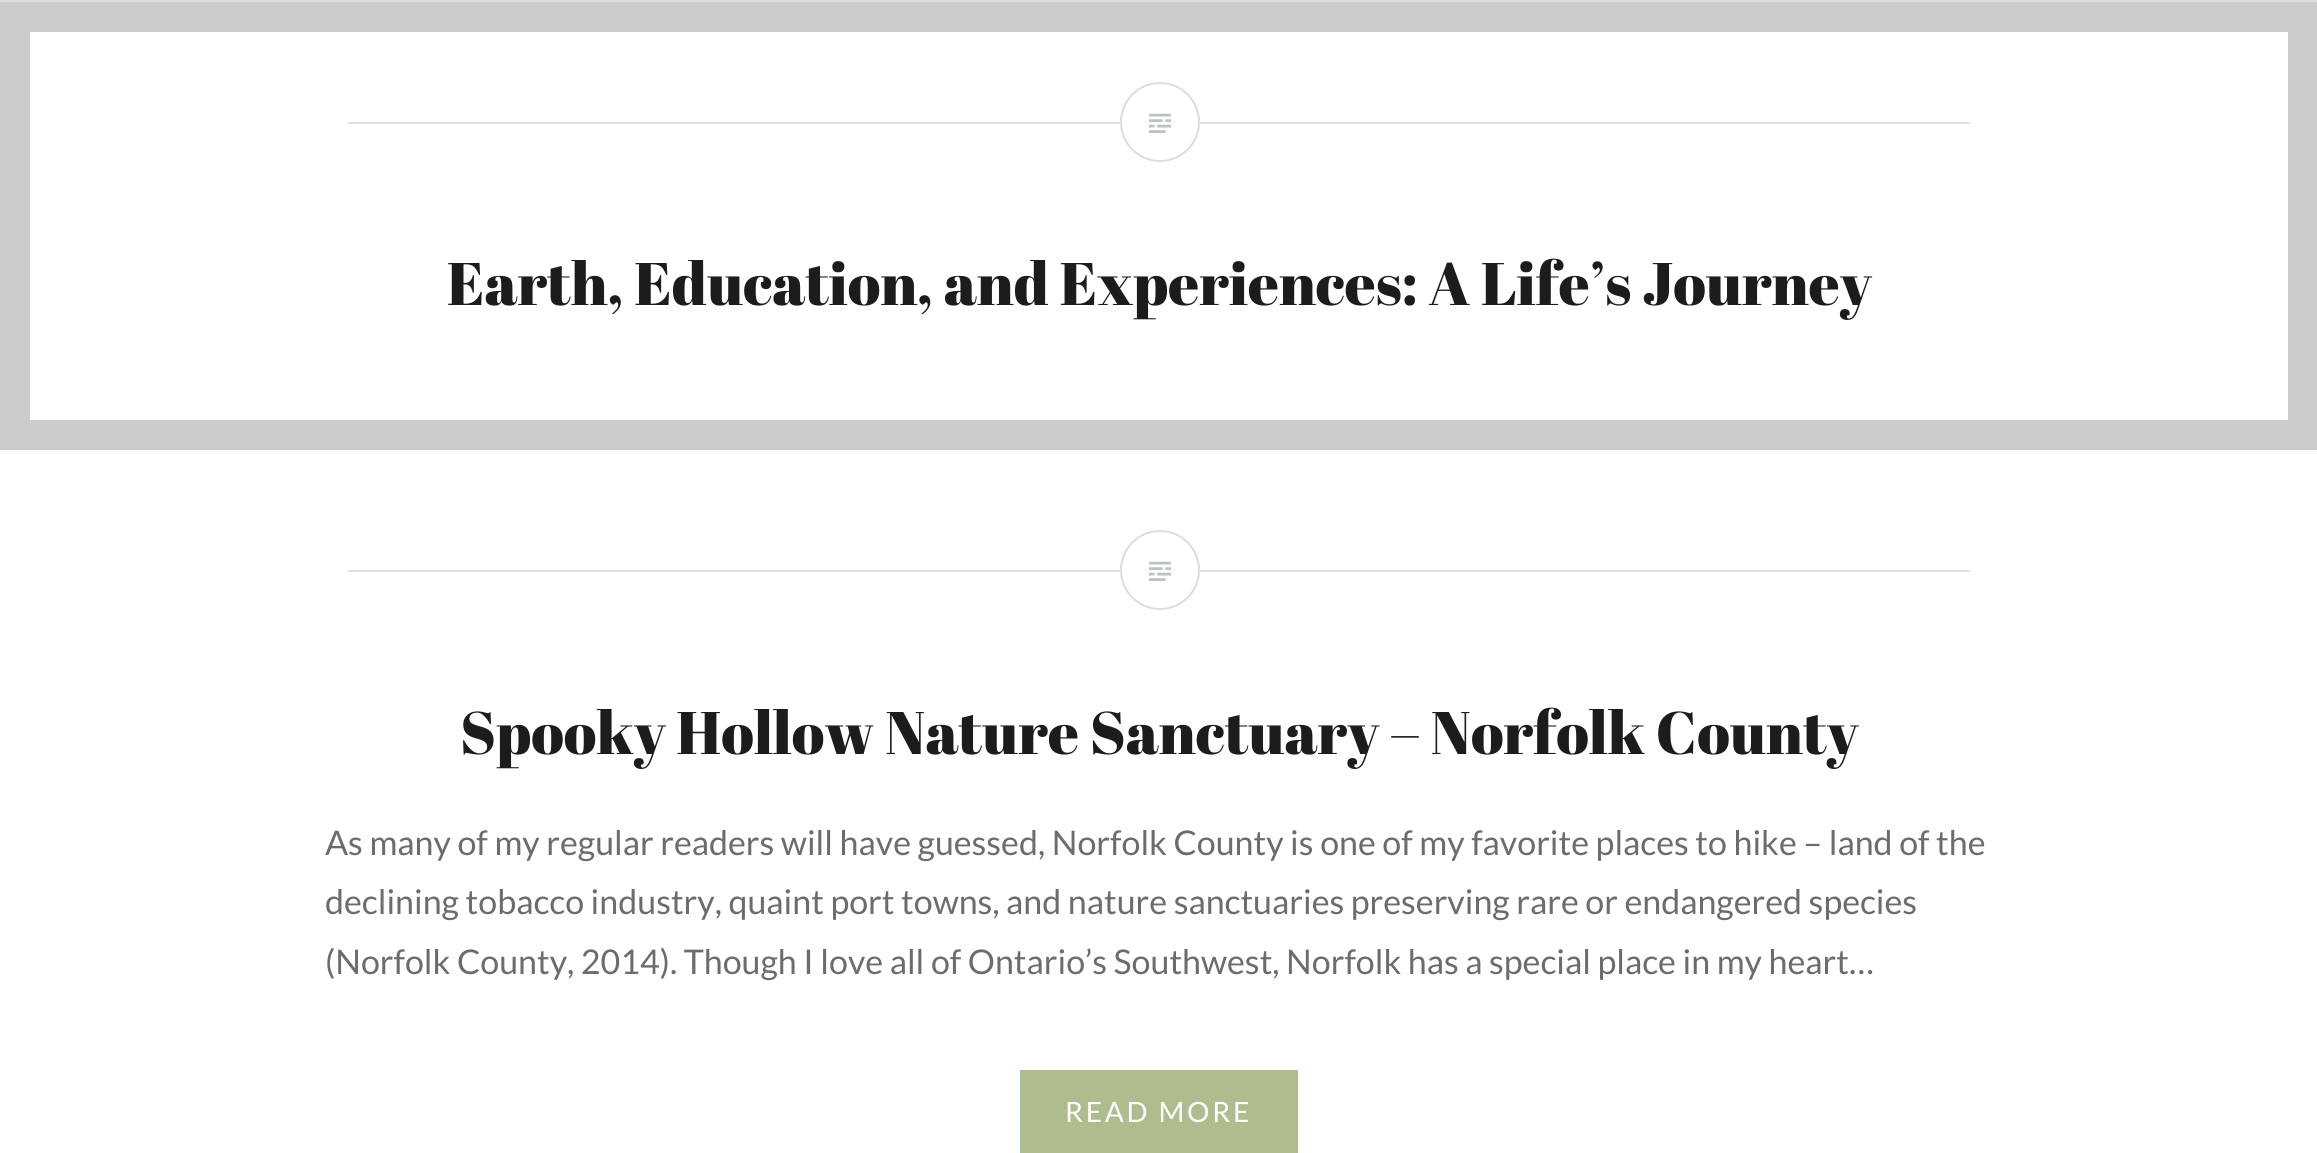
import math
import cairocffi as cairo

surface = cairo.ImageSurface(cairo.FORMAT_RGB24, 2317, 1153)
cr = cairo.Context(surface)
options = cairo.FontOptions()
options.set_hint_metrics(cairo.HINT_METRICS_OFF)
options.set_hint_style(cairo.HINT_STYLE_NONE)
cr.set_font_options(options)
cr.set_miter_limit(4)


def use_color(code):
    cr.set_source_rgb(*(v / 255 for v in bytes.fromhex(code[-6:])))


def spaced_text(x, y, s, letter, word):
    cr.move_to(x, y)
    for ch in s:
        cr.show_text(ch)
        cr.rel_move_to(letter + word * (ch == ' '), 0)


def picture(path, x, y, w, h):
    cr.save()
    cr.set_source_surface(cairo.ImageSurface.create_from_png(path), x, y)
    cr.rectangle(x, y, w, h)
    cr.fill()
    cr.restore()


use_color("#d9dfe5")
cr.paint()
use_color("#ffffff")
cr.rectangle(30, 32, 2258, 388)
cr.fill()
use_color("#e1e1e1")
cr.rectangle(348, 122, 1622, 2)
cr.fill()
use_color("#ffffff")
cr.arc(1160, 122, 39, 0, 2 * math.pi)
cr.fill_preserve()
use_color("#dddddd")
cr.stroke()
picture("img1.png", 1149, 113, 22, 20)
cr.rectangle(15, 17, 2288, 418)
use_color("#cccccc")
cr.set_line_width(30)
cr.stroke()
cr.select_font_face("Abril Fatface")
cr.set_font_size(60)
use_color("#1a1c1e")
cr.move_to(447, 305)
cr.show_text("Earth, Education, and Experiences: A Life’s Journey")
use_color("#ffffff")
cr.rectangle(0, 450, 2317, 703)
cr.fill()
use_color("#e1e1e1")
cr.rectangle(348, 570, 1622, 2)
cr.fill()
use_color("#ffffff")
cr.arc(1160, 570, 39, 0, 2 * math.pi)
cr.fill_preserve()
use_color("#dddddd")
cr.set_line_width(2)
cr.stroke()
picture("img1.png", 1149, 561, 22, 20)
use_color("#1a1c1e")
cr.move_to(460, 754)
cr.show_text("Spooky Hollow Nature Sanctuary – Norfolk County")
cr.select_font_face("Lato")
cr.set_font_size(34)
use_color("#6a6c6e")
cr.move_to(325, 855)
cr.show_text("As many of my regular readers will have guessed, Norfolk County is one of my favorite places to hike – land of the")
cr.move_to(325, 914)
cr.show_text("declining tobacco industry, quaint port towns, and nature sanctuaries preserving rare or endangered species")
cr.move_to(325, 974)
cr.show_text("(Norfolk County, 2014). Though I love all of Ontario’s Southwest, Norfolk has a special place in my heart…")
use_color("#aebc8e")
cr.rectangle(1020, 1070, 278, 83)
cr.fill()
cr.set_font_size(28)
use_color("#ffffff")
spaced_text(1065, 1122, "READ MORE", 2.75, 0)
surface.write_to_png("result.png")
